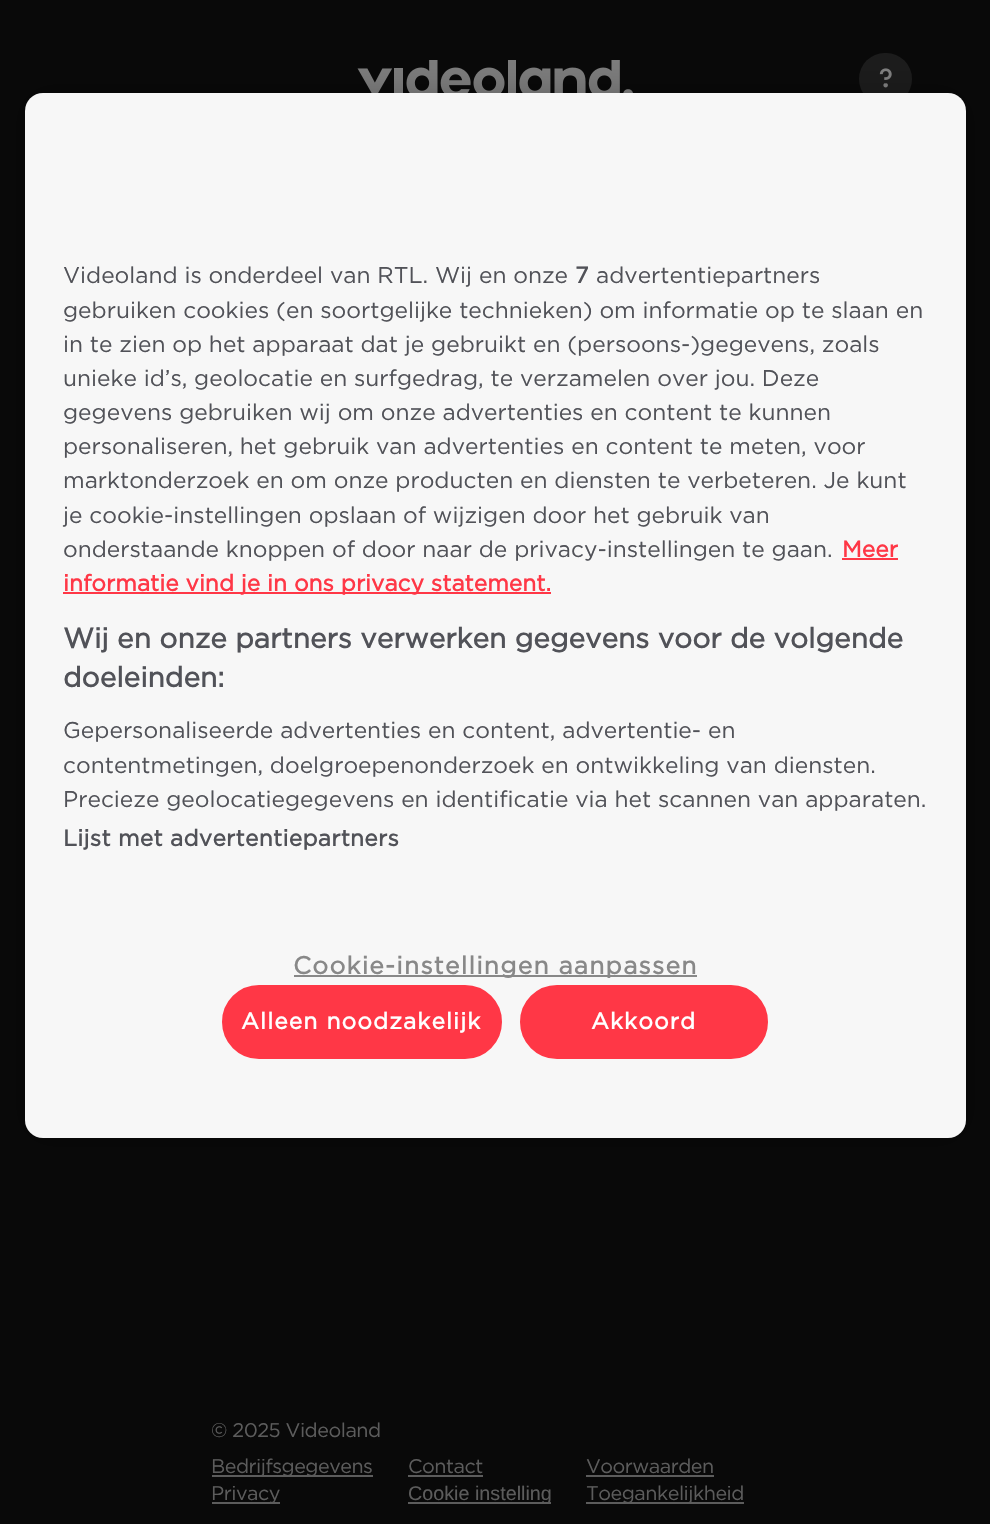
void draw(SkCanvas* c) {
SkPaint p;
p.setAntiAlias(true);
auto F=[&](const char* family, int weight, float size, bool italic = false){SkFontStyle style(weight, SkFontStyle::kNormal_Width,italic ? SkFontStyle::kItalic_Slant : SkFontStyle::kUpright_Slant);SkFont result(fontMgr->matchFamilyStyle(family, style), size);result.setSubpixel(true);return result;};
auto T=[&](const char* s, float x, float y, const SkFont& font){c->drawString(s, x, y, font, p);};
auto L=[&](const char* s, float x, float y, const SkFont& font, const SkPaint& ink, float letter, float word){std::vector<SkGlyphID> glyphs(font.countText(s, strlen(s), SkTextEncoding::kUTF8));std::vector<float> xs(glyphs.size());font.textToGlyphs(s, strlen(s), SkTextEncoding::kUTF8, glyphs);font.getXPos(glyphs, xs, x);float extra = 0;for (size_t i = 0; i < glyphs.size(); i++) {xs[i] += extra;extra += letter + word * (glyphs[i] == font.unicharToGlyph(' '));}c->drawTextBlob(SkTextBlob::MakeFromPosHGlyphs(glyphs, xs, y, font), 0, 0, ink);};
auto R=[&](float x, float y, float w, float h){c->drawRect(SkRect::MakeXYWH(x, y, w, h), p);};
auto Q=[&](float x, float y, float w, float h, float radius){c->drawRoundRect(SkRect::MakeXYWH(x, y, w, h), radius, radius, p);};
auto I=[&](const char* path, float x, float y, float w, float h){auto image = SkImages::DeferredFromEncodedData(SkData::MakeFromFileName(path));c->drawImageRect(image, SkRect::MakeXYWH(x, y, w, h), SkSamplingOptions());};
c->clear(0xff090909);
I("1.png",357,60,276,33);
p.setColor(0xff1c1c1c);
Q(859,53,53,52,26);
I("2.png",879,68,13,20);
p.setColor(0x33000000);
p.setMaskFilter(SkMaskFilter::MakeBlur(kNormal_SkBlurStyle, 16));
c->drawRoundRect(SkRect::MakeXYWH(25,93,941,1045),18,18,p);
p.setMaskFilter(nullptr);
p.setColor(0xfff7f7f7);
Q(25,93,941,1045,18);
auto f1 = F("Gotham",400,22.75);
p.setColor(0xff515258);
T("Videoland is onderdeel van RTL. Wij en onze",63,283,f1);
auto f2 = F("Gotham",700,22.75);
T("7",575,283,f2);
T("advertentiepartners",596,283,f1);
T("gebruiken cookies (en soortgelijke technieken) om informatie op te slaan en",63,318,f1);
T("in te zien op het apparaat dat je gebruikt en (persoons-)gegevens, zoals",63,352,f1);
T("unieke id’s, geolocatie en surfgedrag, te verzamelen over jou. Deze",63,386,f1);
T("gegevens gebruiken wij om onze advertenties en content te kunnen",63,420,f1);
T("personaliseren, het gebruik van advertenties en content te meten, voor",63,454,f1);
T("marktonderzoek en om onze producten en diensten te verbeteren. Je kunt",63,488,f1);
T("je cookie-instellingen opslaan of wijzigen door het gebruik van",63,523,f1);
T("onderstaande knoppen of door naar de privacy-instellingen te gaan.",63,557,f1);
p.setColor(0xffff3746);
T("Meer",842,557,f2);
R(842,558,56,2);
R(63,592,488,2);
T("informatie vind je in ons privacy statement.",63,591,f2);
auto f3 = F("Gotham",700,28);
p.setColor(0xff515258);
T("Wij en onze partners verwerken gegevens voor de volgende",63,648,f3);
T("doeleinden:",63,687,f3);
T("Gepersonaliseerde advertenties en content, advertentie- en",63,738,f1);
T("contentmetingen, doelgroepenonderzoek en ontwikkeling van diensten.",63,773,f1);
T("Precieze geolocatiegegevens en identificatie via het scannen van apparaten.",63,807,f1);
L("Lijst met advertentiepartners",63,846,f2,p,.25,0);
p.setColor(0xff888888);
R(294,975,403,2);
auto f4 = F("Gotham",700,24.5);
L("Cookie-instellingen aanpassen",293,974,f4,p,1.25,0);
p.setColor(0xffff3746);
c->drawRoundRect(SkRect::MakeXYWH(223,986,278,72),36,36,p);
p.setStroke(true);
p.setStrokeWidth(2);
c->drawRoundRect(SkRect::MakeXYWH(223,986,278,72),36,36,p);
p.setStroke(false);
p.setColor(0xffffffff);
L("Alleen noodzakelijk",241,1029,f2,p,1.1,0);
p.setColor(0xffff3746);
c->drawRoundRect(SkRect::MakeXYWH(521,986,246,72),36,36,p);
p.setStroke(true);
c->drawRoundRect(SkRect::MakeXYWH(521,986,246,72),36,36,p);
p.setStroke(false);
p.setColor(0xffffffff);
L("Akkoord",591,1029,f2,p,1.1,0);
auto f5 = F("Gotham",400,19.75);
p.setColor(0xff5c5c5c);
L("© 2025 Videoland",211,1437,f5,p,-.5,0);
R(212,1475,161,2);
L("Bedrijfsgegevens",211,1473,f5,p,-.5,0);
L("Contact",408,1473,f5,p,-.5,0);
R(408,1475,75,2);
L("Voorwaarden",586,1473,f5,p,-.5,0);
R(586,1475,128,2);
R(212,1502,68,2);
L("Privacy",211,1500,f5,p,-.5,0);
R(408,1502,143,2);
auto f6 = F("Liberation Sans",400,19.75);
T("Cookie instelling",408,1500,f6);
R(586,1502,158,2);
L("Toegankelijkheid",586,1500,f5,p,-.5,0);
}
